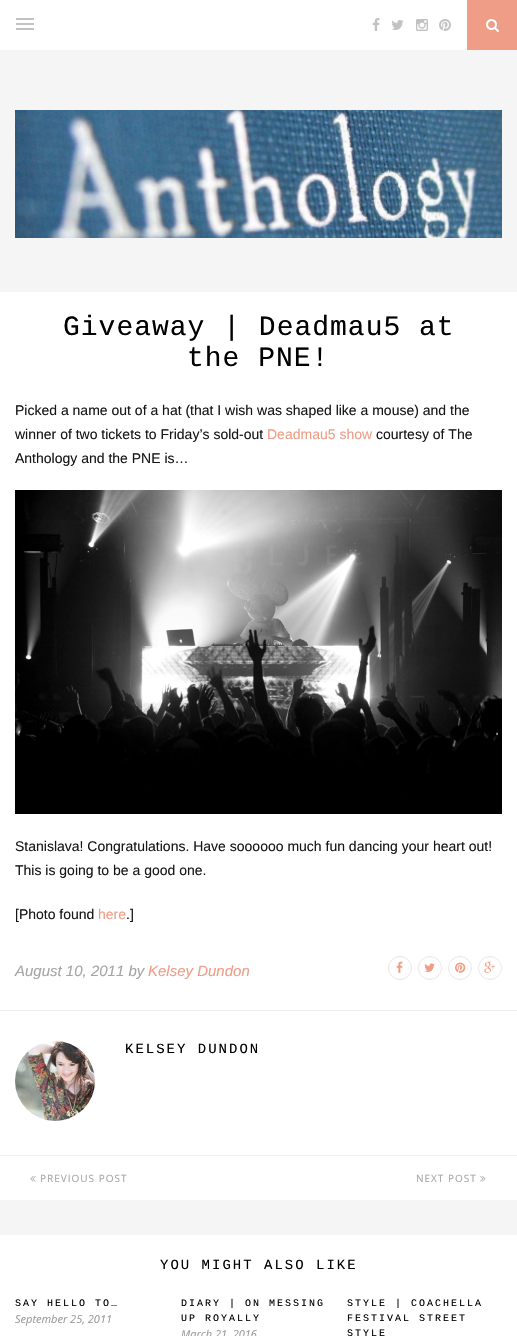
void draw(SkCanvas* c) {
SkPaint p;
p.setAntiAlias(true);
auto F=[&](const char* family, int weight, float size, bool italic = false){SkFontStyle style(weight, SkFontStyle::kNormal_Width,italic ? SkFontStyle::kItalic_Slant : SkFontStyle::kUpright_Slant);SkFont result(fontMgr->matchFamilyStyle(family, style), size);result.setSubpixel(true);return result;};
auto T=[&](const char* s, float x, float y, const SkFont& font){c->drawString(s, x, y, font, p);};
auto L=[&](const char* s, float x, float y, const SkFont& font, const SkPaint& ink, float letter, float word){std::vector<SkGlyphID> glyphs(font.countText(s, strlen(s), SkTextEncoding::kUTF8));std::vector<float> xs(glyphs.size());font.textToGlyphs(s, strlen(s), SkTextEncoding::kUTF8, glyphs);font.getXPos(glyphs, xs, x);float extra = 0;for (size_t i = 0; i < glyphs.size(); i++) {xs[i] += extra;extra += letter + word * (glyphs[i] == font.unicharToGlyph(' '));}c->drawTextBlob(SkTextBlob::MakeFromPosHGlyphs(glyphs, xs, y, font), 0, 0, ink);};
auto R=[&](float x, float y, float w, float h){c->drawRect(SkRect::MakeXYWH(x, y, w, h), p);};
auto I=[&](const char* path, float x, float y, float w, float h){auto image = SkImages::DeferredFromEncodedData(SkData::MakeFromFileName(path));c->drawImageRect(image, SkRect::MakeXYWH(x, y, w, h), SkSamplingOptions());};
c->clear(0xfff5f5f5);
p.setColor(0xffffffff);
R(0,0,467,50);
p.setColor(0xffc2c2c2);
R(16,18,18,2);
R(16,23,18,2);
R(16,28,18,2);
I("1.png",372,18,8,13);
I("2.png",391,20,13,10);
I("3.png",416,19,12,12);
I("4.png",439,19,12,12);
p.setColor(0xffef9d87);
R(467,0,50,50);
I("5.png",486,19,13,13);
I("6.png",15,110,487,128);
p.setColor(0xffffffff);
R(0,292,517,908);
auto f1 = F("Liberation Mono",400,28);
p.setColor(0xff000000);
L("Giveaway | Deadmau5 at",63,335,f1,p,1,0);
L("the PNE!",187,366,f1,p,1,0);
auto f2 = F("Liberation Sans",400,14);
p.setColor(0xff161616);
T("Picked a name out of a hat (that I wish was shaped like a mouse) and the",15,415,f2);
T("winner of two tickets to Friday’s sold-out",15,439,f2);
p.setColor(0xffef9d87);
T("Deadmau5 show",267,439,f2);
p.setColor(0xff161616);
T("courtesy of The",376,439,f2);
T("Anthology and the PNE is…",15,463,f2);
I("7.png",15,490,487,324);
T("Stanislava! Congratulations. Have soooooo much fun dancing your heart out!",15,851,f2);
T("This is going to be a good one.",15,875,f2);
T("[Photo found",15,919,f2);
p.setColor(0xffef9d87);
T("here",98,919,f2);
p.setColor(0xff161616);
T(".]",126,919,f2);
auto f3 = F("Liberation Sans",400,15,true);
p.setColor(0xffa5a5a5);
T("August 10, 2011 by",15,976,f3);
p.setColor(0xffef9d87);
T("Kelsey Dundon",148,976,f3);
p.setStroke(true);
p.setStrokeWidth(1);
p.setColor(0xffe8e8e8);
c->drawCircle(400,968,11.5,p);
I("8.png",396,961,7,12);
c->drawCircle(430,968,11.5,p);
I("9.png",424,963,11,9);
c->drawCircle(460,968,11.5,p);
I("10.png",455,962,11,11);
c->drawCircle(490,968,11.5,p);
I("11.png",484,961,11,12);
p.setStroke(false);
p.setColor(0xffeeeeee);
R(0,1010,517,1);
I("12.png",15,1041,80,80);
auto f4 = F("Liberation Mono",400,14);
p.setColor(0xff000000);
L("KELSEY DUNDON",125,1053,f4,p,2,0);
p.setColor(0xffeeeeee);
R(0,1155,517,1);
I("13.png",30,1176,6,6);
auto f5 = F("Open Sans",400,10);
p.setColor(0xffa5a5a5);
L("PREVIOUS POST",40,1182,f5,p,1,0);
L("NEXT POST",416,1182,f5,p,1,0);
I("14.png",480,1176,6,6);
p.setColor(0xffffffff);
R(0,1235,517,101);
p.setColor(0xff000000);
L("YOU MIGHT ALSO LIKE",160,1269,f4,p,2,0);
auto f6 = F("Liberation Mono",400,10);
L("SAY HELLO TO…",15,1306,f6,p,2,0);
auto f7 = F("Open Sans",400,11,true);
p.setColor(0xff999999);
T("September 25, 2011",15,1323,f7);
p.setColor(0xff000000);
L("DIARY | ON MESSING",181,1306,f6,p,2,0);
L("UP ROYALLY",181,1321,f6,p,2,0);
p.setColor(0xff999999);
T("March 21, 2016",181,1338,f7);
p.setColor(0xff000000);
L("STYLE | COACHELLA",347,1306,f6,p,2,0);
L("FESTIVAL STREET",347,1321,f6,p,2,0);
L("STYLE",347,1336,f6,p,2,0);
}
